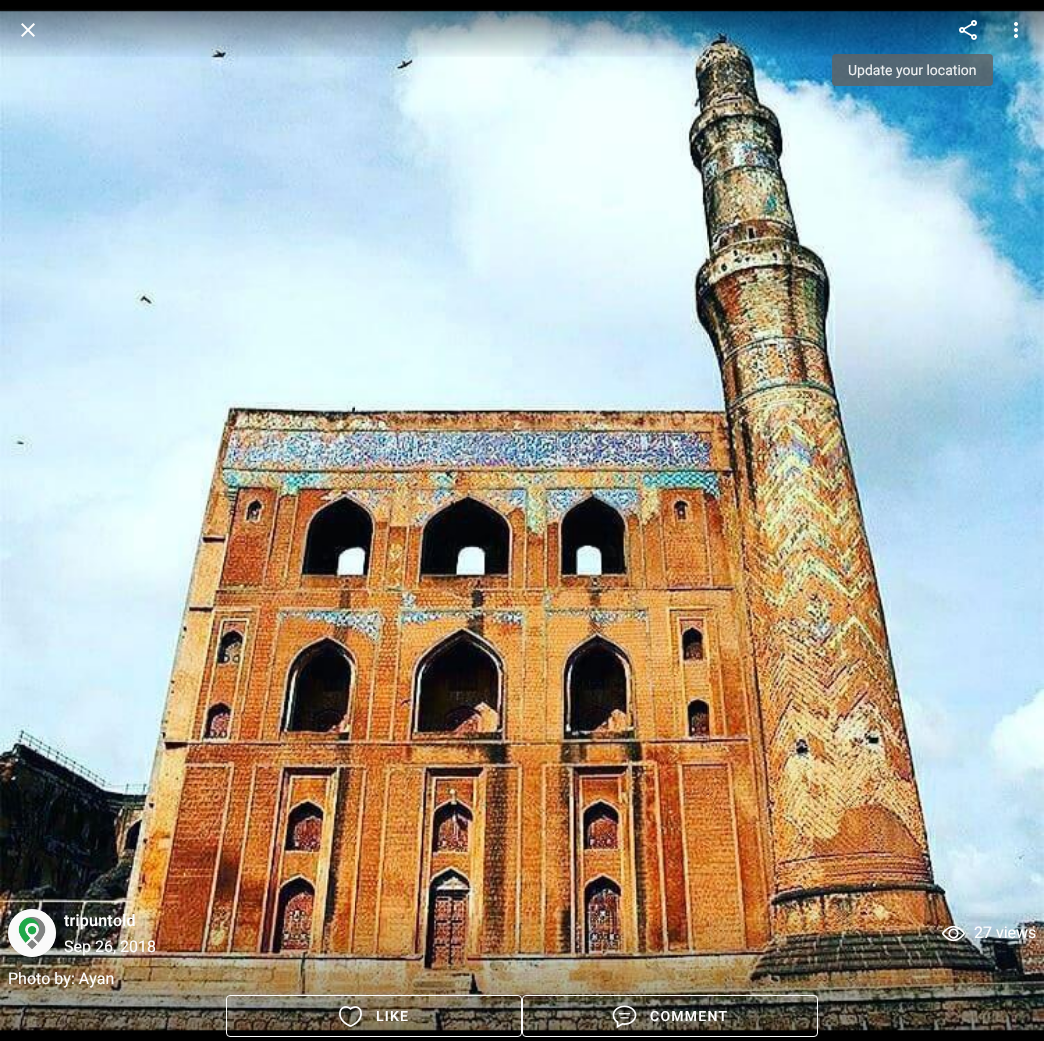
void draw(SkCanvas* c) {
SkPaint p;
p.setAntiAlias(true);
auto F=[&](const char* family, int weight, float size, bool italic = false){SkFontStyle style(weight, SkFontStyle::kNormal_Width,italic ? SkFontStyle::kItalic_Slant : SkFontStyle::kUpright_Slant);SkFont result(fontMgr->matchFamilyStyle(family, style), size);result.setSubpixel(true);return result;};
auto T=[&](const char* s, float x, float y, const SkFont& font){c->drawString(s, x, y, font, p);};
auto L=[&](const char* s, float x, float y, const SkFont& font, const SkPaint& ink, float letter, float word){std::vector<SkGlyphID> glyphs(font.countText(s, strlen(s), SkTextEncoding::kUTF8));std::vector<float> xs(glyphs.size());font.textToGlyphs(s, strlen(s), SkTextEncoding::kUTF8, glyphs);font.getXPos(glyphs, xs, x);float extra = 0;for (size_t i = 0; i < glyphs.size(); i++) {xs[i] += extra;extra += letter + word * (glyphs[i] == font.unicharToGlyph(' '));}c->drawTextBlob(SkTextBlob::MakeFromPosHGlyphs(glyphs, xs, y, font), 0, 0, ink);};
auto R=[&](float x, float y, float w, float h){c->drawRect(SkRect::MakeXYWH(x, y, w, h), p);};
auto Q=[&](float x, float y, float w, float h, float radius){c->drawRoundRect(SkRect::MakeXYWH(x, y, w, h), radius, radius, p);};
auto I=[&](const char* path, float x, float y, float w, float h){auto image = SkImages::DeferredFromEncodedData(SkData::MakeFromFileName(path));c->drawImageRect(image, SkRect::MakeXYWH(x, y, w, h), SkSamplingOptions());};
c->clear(0xff000000);
I("4.png",0,9,1044,1022);
{
const SkColor colors[] = {0x80000000,0x00000000};
const float stops[] = {0,1};
const SkPoint ends[] = {{522,0}, {522,60}};
p.setShader(SkGradientShader::MakeLinear(ends, colors, stops, 2, SkTileMode::kClamp));
p.setAlpha(255);
}
R(0,9,1044,48);
p.setShader(nullptr);
p.setColor(0xcf616161);
Q(832,54,161,32,4);
auto f1 = F("Roboto",400,14);
p.setColor(0xffeef0f1);
T("Update your location",848,75,f1);
I("1.png",21,23,14,14);
I("2.png",959,20,18,20);
I("3.png",1014,22,4,16);
{
const SkColor colors[] = {0x00000000,0x80000000};
const float stops[] = {0,1};
const SkPoint ends[] = {{522,907}, {522,1041}};
p.setShader(SkGradientShader::MakeLinear(ends, colors, stops, 2, SkTileMode::kClamp));
p.setAlpha(255);
}
R(0,913,1044,118);
p.setShader(nullptr);
p.setColor(0xffe3e3e3);
c->drawCircle(32,933,24,p);
I("5.png",8,909,48,48);
auto f2 = F("Roboto",500,16);
p.setColor(0xffffffff);
L("tripuntold",64,926,f2,p,.25,0);
auto f3 = F("Roboto",400,16);
T("Sep 26, 2018",64,952,f3);
I("6.png",942,925,23,17);
T("27 views",974,938,f3);
T("Photo by: Ayan",8,984,f3);
p.setStroke(true);
p.setStrokeWidth(1);
c->drawRoundRect(SkRect::MakeXYWH(226.5,995.5,295,41),3.5,3.5,p);
I("7.png",339,1006,23,21);
auto f4 = F("Roboto",500,14);
p.setStroke(false);
L("LIKE",376,1021,f4,p,1.25,0);
p.setStroke(true);
c->drawRoundRect(SkRect::MakeXYWH(522.5,995.5,295,41),3.5,3.5,p);
I("8.png",612,1005,25,23);
p.setStroke(false);
L("COMMENT",650,1021,f4,p,1.25,0);
}
